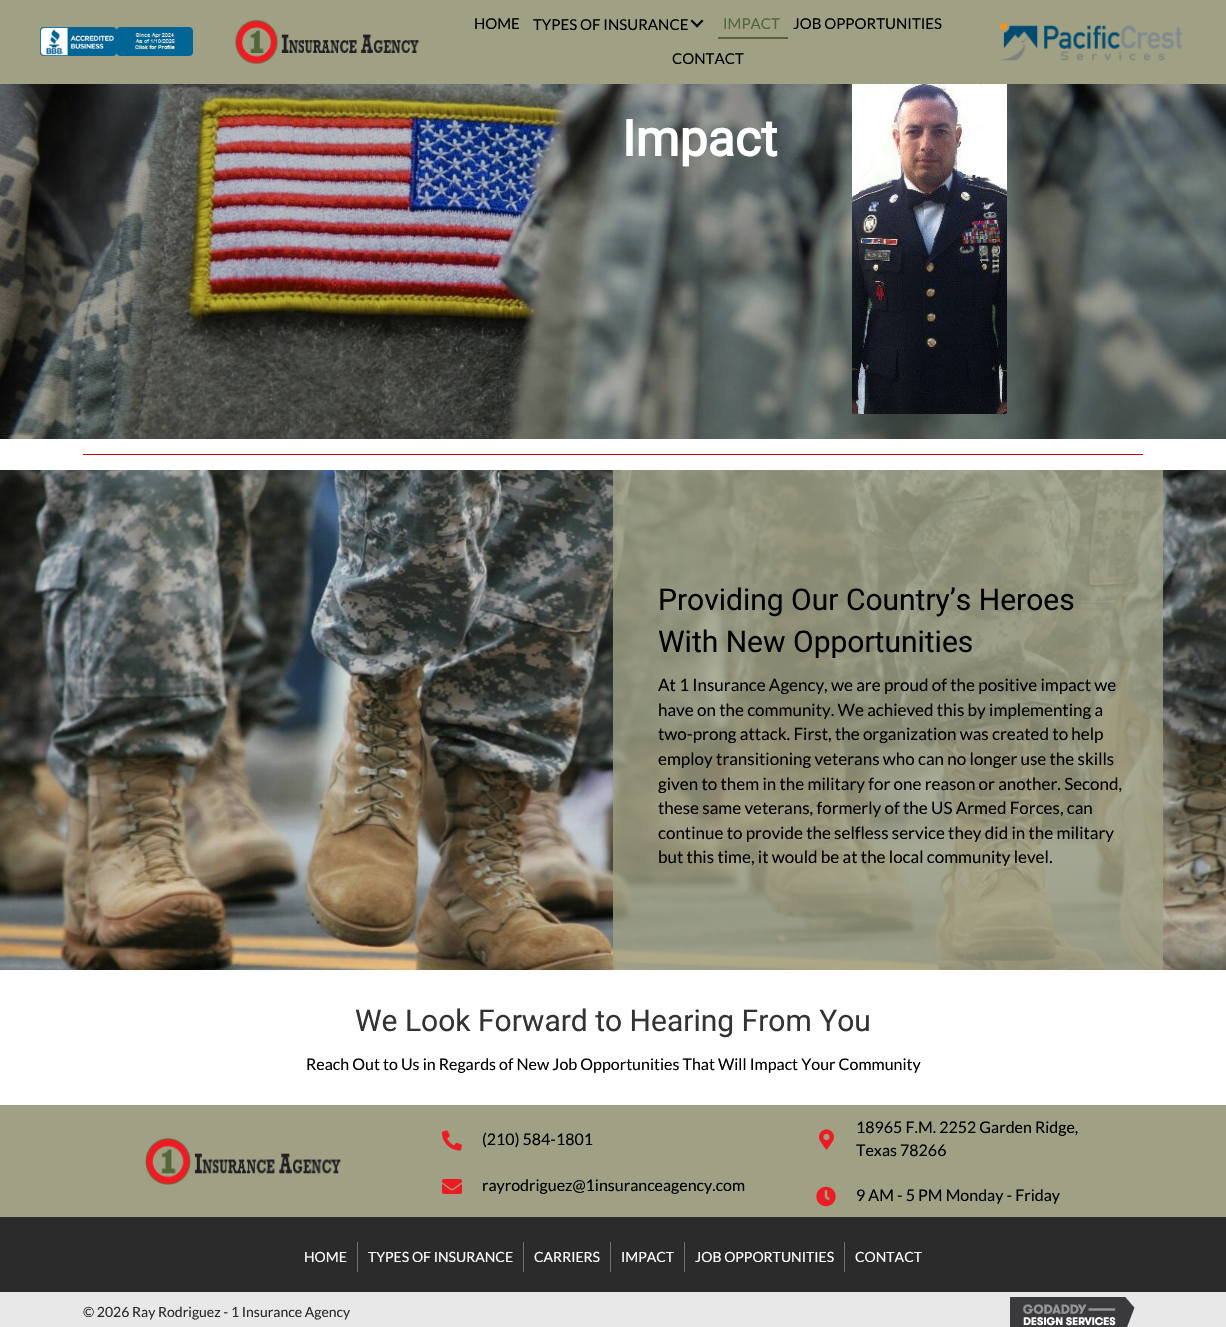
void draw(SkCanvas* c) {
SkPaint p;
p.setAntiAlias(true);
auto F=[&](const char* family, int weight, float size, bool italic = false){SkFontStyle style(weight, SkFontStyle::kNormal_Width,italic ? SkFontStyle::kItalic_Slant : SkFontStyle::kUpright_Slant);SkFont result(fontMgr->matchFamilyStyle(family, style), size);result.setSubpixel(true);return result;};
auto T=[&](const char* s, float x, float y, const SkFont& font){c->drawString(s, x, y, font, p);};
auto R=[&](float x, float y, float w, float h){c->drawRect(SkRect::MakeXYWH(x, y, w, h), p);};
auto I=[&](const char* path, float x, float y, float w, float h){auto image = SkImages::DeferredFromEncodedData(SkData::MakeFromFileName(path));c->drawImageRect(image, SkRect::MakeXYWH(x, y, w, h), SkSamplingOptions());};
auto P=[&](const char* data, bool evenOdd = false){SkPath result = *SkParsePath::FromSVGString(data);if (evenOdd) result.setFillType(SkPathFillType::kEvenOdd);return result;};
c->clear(0xffffffff);
p.setColor(0xff9fa084);
R(0,0,1226,84);
I("1.png",40,27,153,29);
I("2.png",235,19,185,45);
auto f1 = F("Lato",400,15);
p.setColor(0xff000000);
T("HOME",474,29,f1);
T("TYPES OF INSURANCE",533,30,f1);
c->drawPath(P("M702 19.5l1.5 1.5l-6.5 6.5l-1.5-1.5z"),p);
c->drawPath(P("M692 19.5l6.5 6.5l-1.5 1.5l-6.5-6.5z"),p);
p.setColor(0xff546539);
R(718,37,70,2);
T("IMPACT",723,29,f1);
p.setColor(0xff000000);
T("JOB OPPORTUNITIES",793,29,f1);
T("CONTACT",672,64,f1);
I("3.png",1000,22,182,39);
I("4.png",0,84,1226,355);
auto f2 = F("Roboto",700,50);
p.setColor(0xffffffff);
T("Impact",622,156,f2);
I("5.png",852,84,155,330);
p.setColor(0xffcc0404);
R(83,454,1060,1);
I("6.png",0,470,1226,500);
p.setColor(0xcc9fa084);
R(613,470,550,500);
auto f3 = F("Roboto",400,30);
p.setColor(0xff000000);
T("Providing Our Country’s Heroes",658,610,f3);
T("With New Opportunities",658,652,f3);
auto f4 = F("Lato",400,17);
T("At 1 Insurance Agency, we are proud of the positive impact we",658,691,f4);
T("have on the community. We achieved this by implementing a",658,716,f4);
T("two-prong attack. First, the organization was created to help",658,740,f4);
T("employ transitioning veterans who can no longer use the skills",658,765,f4);
T("given to them in the military for one reason or another. Second,",658,790,f4);
T("these same veterans, formerly of the US Armed Forces, can",658,814,f4);
T("continue to provide the selfless service they did in the military",658,839,f4);
T("but this time, it would be at the local community level.",658,863,f4);
p.setColor(0xff333333);
T("We Look Forward to Hearing From You",355,1031,f3);
auto f5 = F("Lato",400,16);
p.setColor(0xff000000);
T("Reach Out to Us in Regards of New Job Opportunities That Will Impact Your Community",306,1070,f5);
p.setColor(0xff9fa084);
R(0,1105,1226,112);
I("7.png",145,1138,196,47);
I("8.png",442,1130,20,21);
p.setColor(0xff000000);
T("(210) 584-1801",482,1145,f5);
I("9.png",442,1179,20,15);
T("rayrodriguez@1insuranceagency.com",482,1191,f5);
I("10.png",819,1129,15,21);
T("18965 F.M. 2252 Garden Ridge,",856,1133,f5);
T("Texas 78266",856,1156,f5);
I("11.png",816,1186,20,21);
T("9 AM - 5 PM Monday - Friday",856,1201,f5);
p.setColor(0xff2b2b2b);
R(0,1217,1226,75);
auto f6 = F("Lato",400,14);
p.setColor(0xffffffff);
T("HOME",304,1262,f6);
p.setColor(0xff717171);
R(357,1242,1,30);
p.setColor(0xffffffff);
T("TYPES OF INSURANCE",368,1262,f6);
p.setColor(0xff717171);
R(523,1242,1,30);
p.setColor(0xffffffff);
T("CARRIERS",534,1262,f6);
p.setColor(0xff717171);
R(610,1242,1,30);
p.setColor(0xffffffff);
T("IMPACT",621,1262,f6);
p.setColor(0xff717171);
R(684,1242,1,30);
p.setColor(0xffffffff);
T("JOB OPPORTUNITIES",695,1262,f6);
p.setColor(0xff717171);
R(844,1242,1,30);
p.setColor(0xffffffff);
T("CONTACT",855,1262,f6);
p.setColor(0xffe8e8e8);
R(0,1292,1226,35);
p.setColor(0xff2b2b2b);
T("© 2026 Ray Rodriguez - 1 Insurance Agency",83,1317,f6);
I("12.png",1010,1297,125,30);
}
